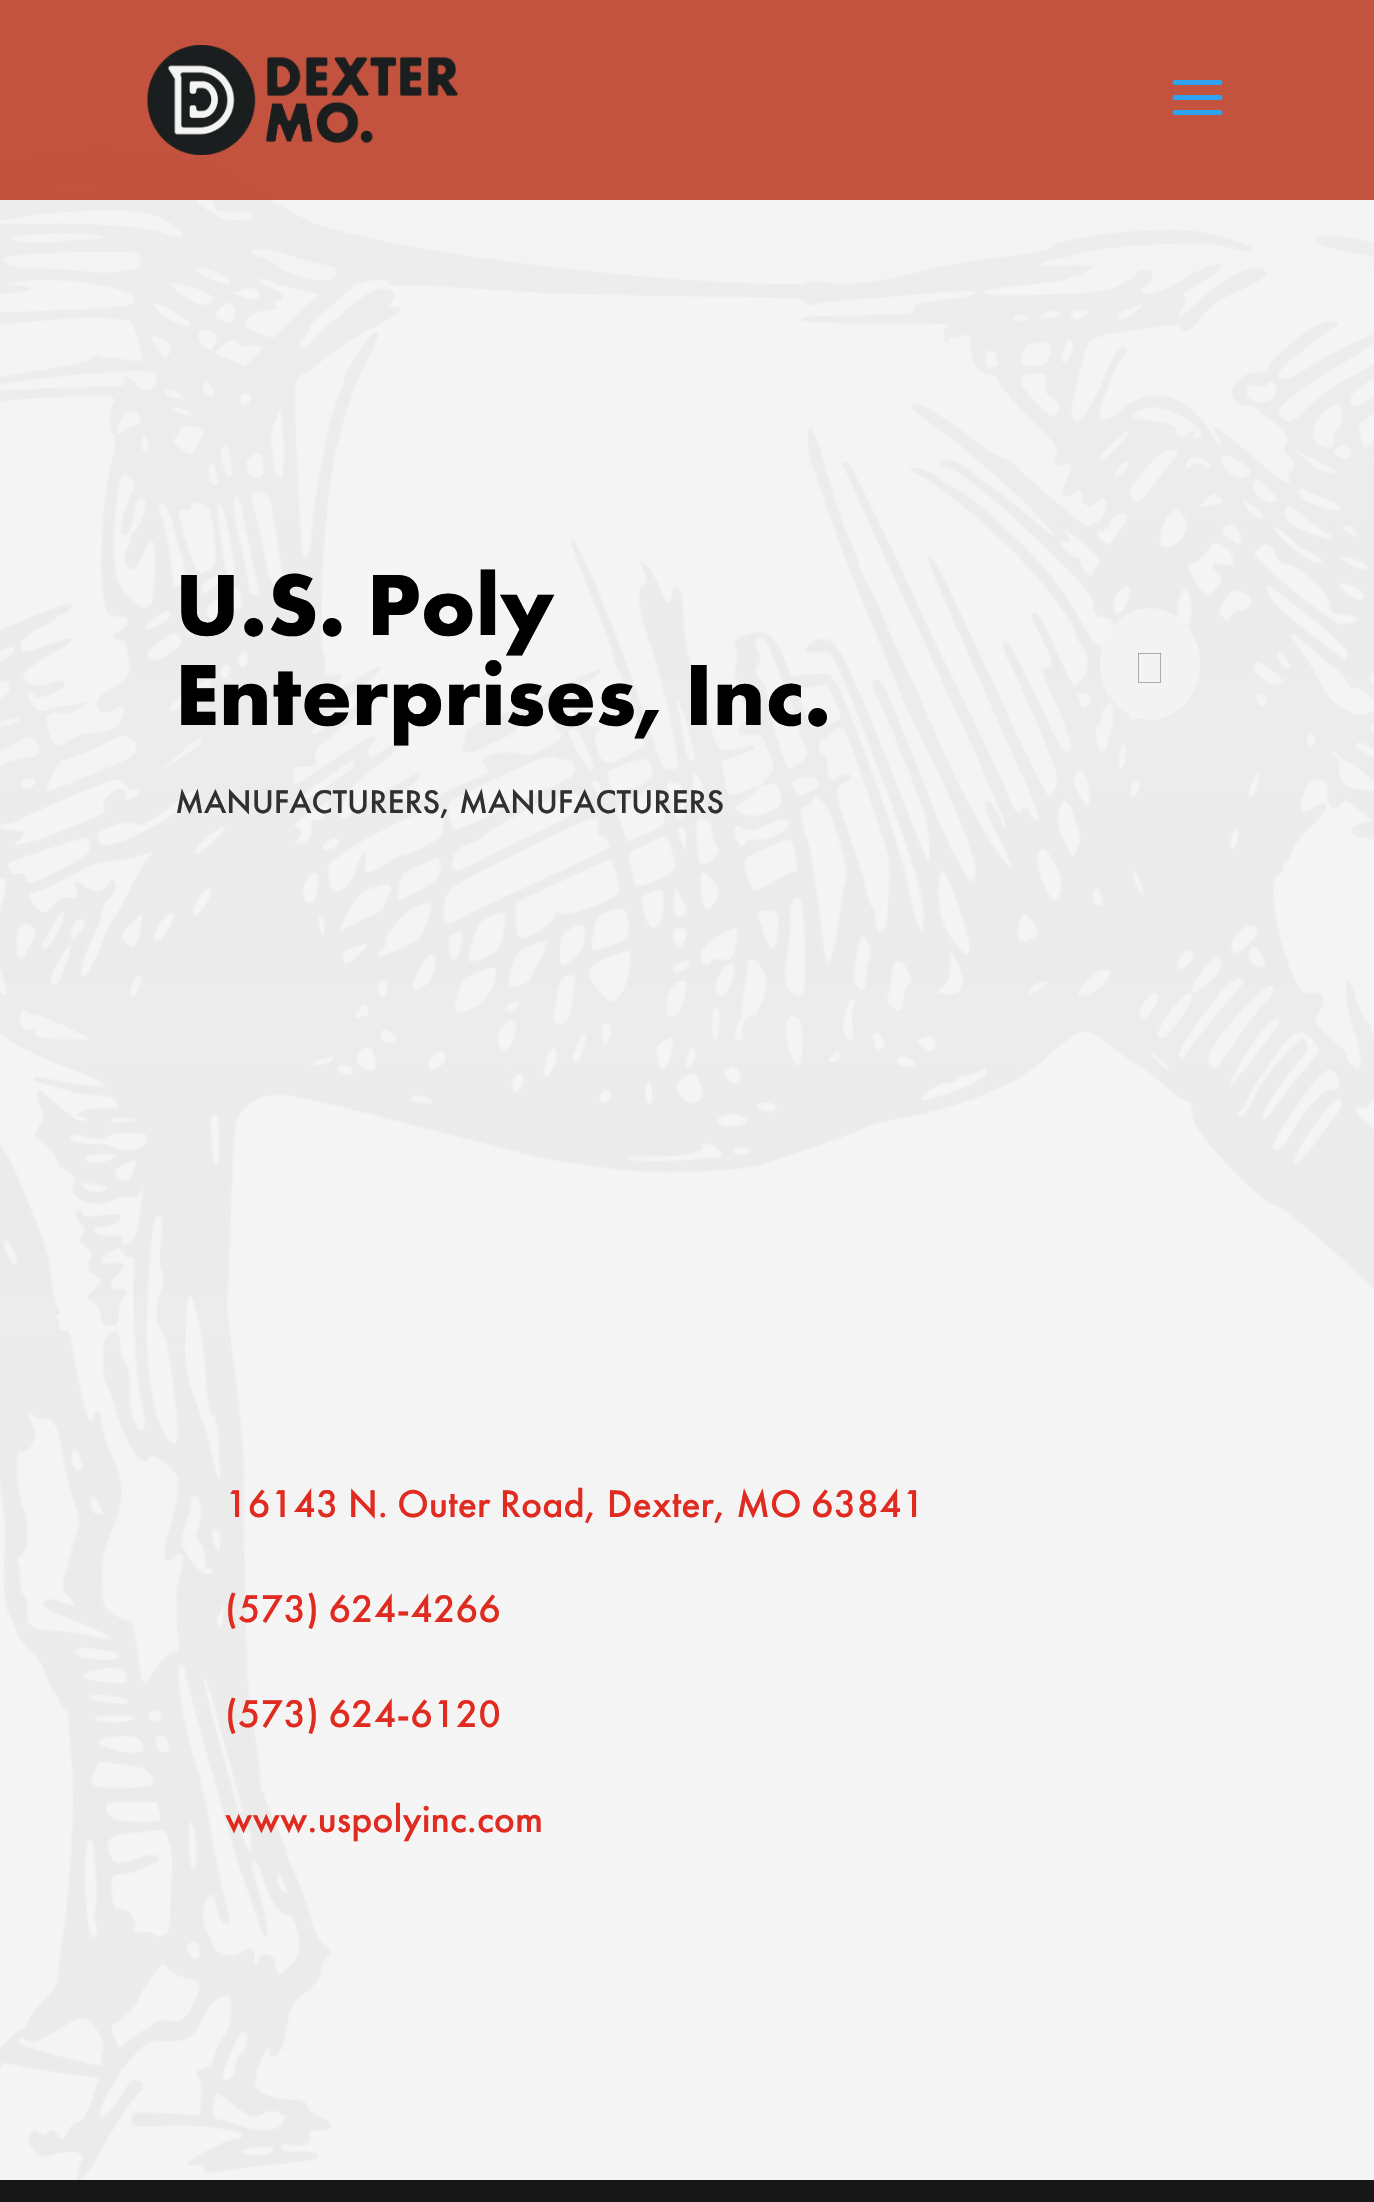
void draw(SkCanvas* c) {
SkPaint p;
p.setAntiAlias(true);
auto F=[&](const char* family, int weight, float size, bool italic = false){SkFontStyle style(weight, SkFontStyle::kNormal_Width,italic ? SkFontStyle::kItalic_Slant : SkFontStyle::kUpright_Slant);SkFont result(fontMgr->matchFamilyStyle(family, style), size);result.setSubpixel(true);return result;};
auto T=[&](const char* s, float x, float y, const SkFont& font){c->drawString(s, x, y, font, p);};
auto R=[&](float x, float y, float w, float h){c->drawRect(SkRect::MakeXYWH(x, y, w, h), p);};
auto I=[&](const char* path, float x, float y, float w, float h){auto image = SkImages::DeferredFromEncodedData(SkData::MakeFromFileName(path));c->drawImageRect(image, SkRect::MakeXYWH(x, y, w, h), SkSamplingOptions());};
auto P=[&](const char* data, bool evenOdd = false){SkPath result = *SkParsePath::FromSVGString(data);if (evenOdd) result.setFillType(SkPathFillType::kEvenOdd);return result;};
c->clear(0xffffffff);
p.setColor(0xfff4f4f4);
R(0,150,1374,2030);
I("3.png",0,150,1374,2030);
p.setColor(0xedbe462f);
R(0,0,1374,200);
I("1.png",147,45,311,110);
I("2.png",1172,80,51,35);
auto f1 = F("Futura PT",700,90);
p.setColor(0xff000000);
T("U.S. Poly",175,635,f1);
T("Enterprises, Inc.",175,725,f1);
p.setColor(0xfff3f3f3);
c->drawOval(SkRect::MakeXYWH(1100,608,100,112),p);
p.setColor(0xff666666);
c->drawPath(P("M1160.5 682v-28.5h-22v28.5zm-22.5-29h23v29.5h-23z"),p);
auto f2 = F("Futura PT",500,34);
p.setColor(0xff303030);
T("MANUFACTURERS, MANUFACTURERS",175,813,f2);
auto f3 = F("Futura PT",500,40);
p.setColor(0xffe02b20);
T("16143 N. Outer Road, Dexter, MO 63841",225,1517,f3);
T("(573) 624-4266",225,1622,f3);
T("(573) 624-6120",225,1727,f3);
T("www.uspolyinc.com",225,1832,f3);
p.setColor(0xff171717);
R(0,2180,1374,22);
}
